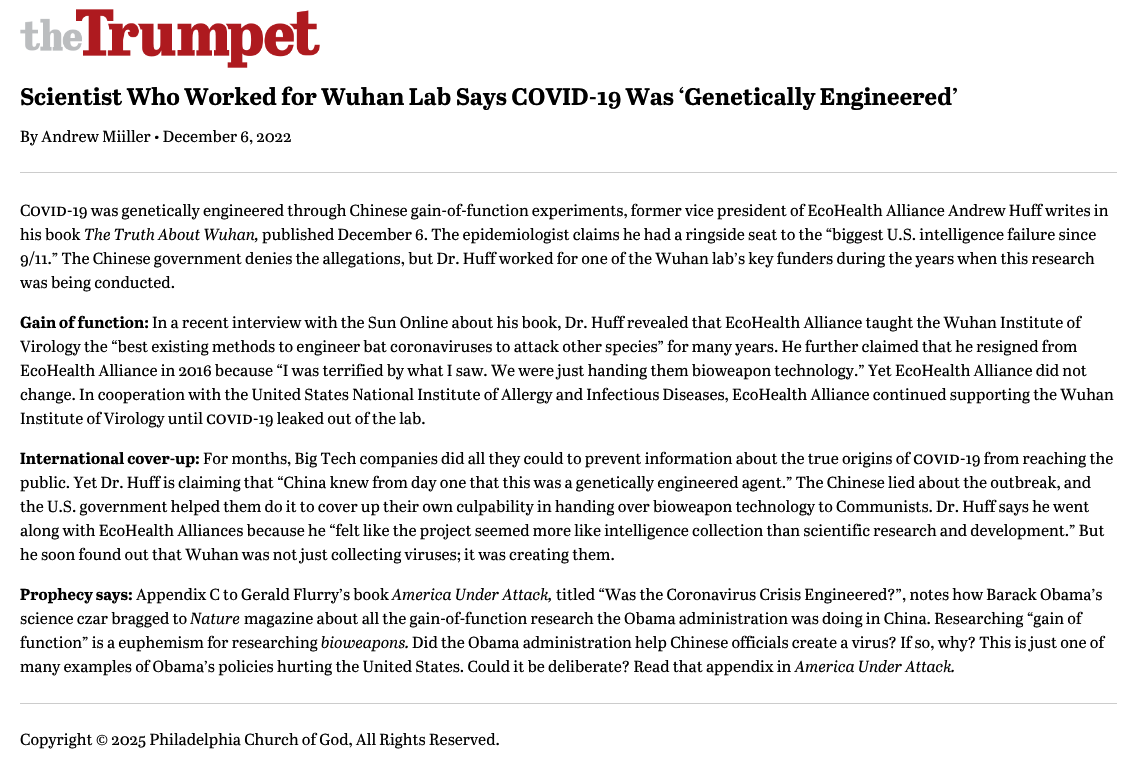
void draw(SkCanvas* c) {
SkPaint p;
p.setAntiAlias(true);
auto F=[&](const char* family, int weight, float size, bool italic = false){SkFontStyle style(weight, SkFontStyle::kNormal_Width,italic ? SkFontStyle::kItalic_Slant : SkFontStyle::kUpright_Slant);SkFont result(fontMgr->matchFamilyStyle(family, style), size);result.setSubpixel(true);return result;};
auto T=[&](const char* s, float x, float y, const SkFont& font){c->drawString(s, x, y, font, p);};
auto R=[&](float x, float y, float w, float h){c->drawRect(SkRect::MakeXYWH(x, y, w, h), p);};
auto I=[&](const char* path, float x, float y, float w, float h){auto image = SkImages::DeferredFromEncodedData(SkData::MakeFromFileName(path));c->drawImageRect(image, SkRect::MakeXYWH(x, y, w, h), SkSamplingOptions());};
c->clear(0xffffffff);
I("1.png",20,9,300,59);
auto f1 = F("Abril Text",700,24);
p.setColor(0xff000000);
T("Scientist Who Worked for Wuhan Lab Says COVID-19 Was ‘Genetically Engineered’",20,105,f1);
auto f2 = F("Abril Text",400,16);
T("By Andrew Miiller • December 6, 2022",20,142,f2);
p.setColor(0xffcccccc);
R(20,172,1097,1);
p.setColor(0xff000000);
T("C",20,216,f2);
auto f3 = F("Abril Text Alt",400,17.5);
T("ovid",30,216,f3);
T("-19 was genetically engineered through Chinese gain-of-function experiments, former vice president of EcoHealth Alliance Andrew Huff writes in",67,216,f2);
T("his book",20,240,f2);
auto f4 = F("Abril Text",400,16,true);
T("The Truth About Wuhan,",84,240,f4);
T("published December 6. The epidemiologist claims he had a ringside seat to the “biggest U.S. intelligence failure since",262,240,f2);
T("9/11.” The Chinese government denies the allegations, but Dr. Huff worked for one of the Wuhan lab’s key funders during the years when this research",20,264,f2);
T("was being conducted.",20,288,f2);
auto f5 = F("Abril Text",700,16);
T("Gain of function:",20,328,f5);
T("In a recent interview with the Sun Online about his book, Dr. Huff revealed that EcoHealth Alliance taught the Wuhan Institute of",152,328,f2);
T("Virology the “best existing methods to engineer bat coronaviruses to attack other species” for many years. He further claimed that he resigned from",20,352,f2);
T("EcoHealth Alliance in 2016 because “I was terrified by what I saw. We were just handing them bioweapon technology.” Yet EcoHealth Alliance did not",20,376,f2);
T("change. In cooperation with the United States National Institute of Allergy and Infectious Diseases, EcoHealth Alliance continued supporting the Wuhan",20,400,f2);
T("Institute of Virology until",20,424,f2);
T("covid",206,424,f3);
T("-19 leaked out of the lab.",253,424,f2);
T("International cover-up:",20,464,f5);
T("For months, Big Tech companies did all they could to prevent information about the true origins of",203,464,f2);
T("covid",913,464,f3);
T("-19 from reaching the",960,464,f2);
T("public. Yet Dr. Huff is claiming that “China knew from day one that this was a genetically engineered agent.” The Chinese lied about the outbreak, and",20,488,f2);
T("the U.S. government helped them do it to cover up their own culpability in handing over bioweapon technology to Communists. Dr. Huff says he went",20,512,f2);
T("along with EcoHealth Alliances because he “felt like the project seemed more like intelligence collection than scientific research and development.” But",20,536,f2);
T("he soon found out that Wuhan was not just collecting viruses; it was creating them.",20,560,f2);
T("Prophecy says:",20,600,f5);
T("Appendix C to Gerald Flurry’s book",136,600,f2);
T("America Under Attack,",392,600,f4);
T("titled “Was the Coronavirus Crisis Engineered?”, notes how Barack Obama’s",556,600,f2);
T("science czar bragged to",20,624,f2);
T("Nature",190,624,f4);
T("magazine about all the gain-of-function research the Obama administration was doing in China. Researching “gain of",244,624,f2);
T("function” is a euphemism for researching",20,648,f2);
T("bioweapons.",321,648,f4);
T("Did the Obama administration help Chinese officials create a virus? If so, why? This is just one of",412,648,f2);
T("many examples of Obama’s policies hurting the United States. Could it be deliberate? Read that appendix in",20,672,f2);
T("America Under Attack.",795,672,f4);
p.setColor(0xffcccccc);
R(20,703,1097,1);
p.setColor(0xff000000);
T("Copyright © 2025 Philadelphia Church of God, All Rights Reserved.",20,745,f2);
}
